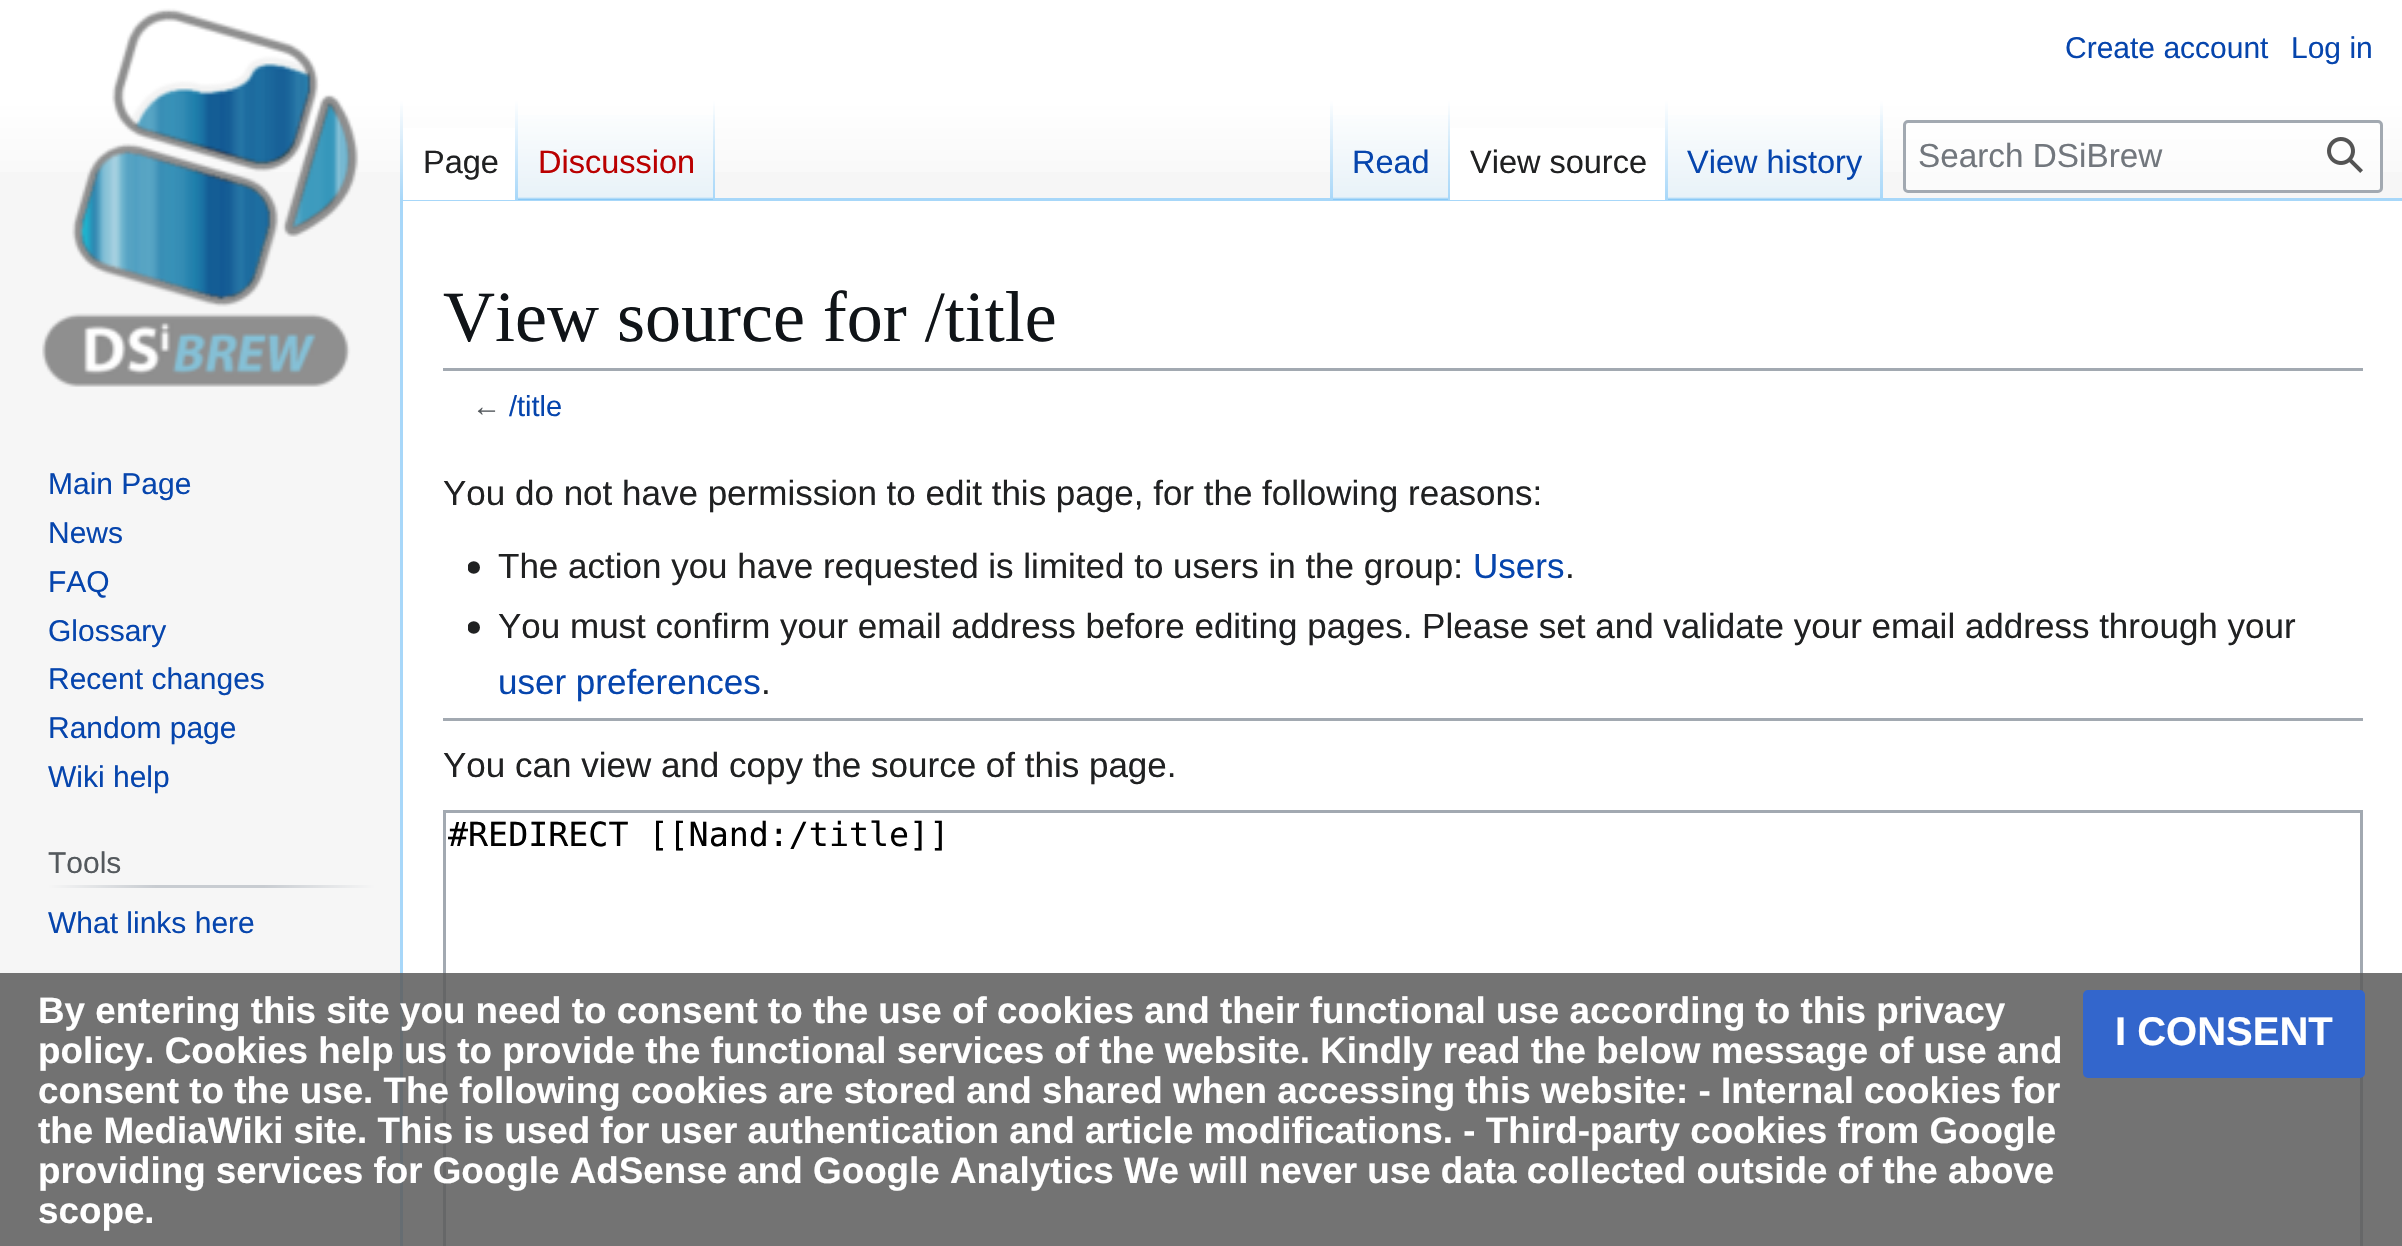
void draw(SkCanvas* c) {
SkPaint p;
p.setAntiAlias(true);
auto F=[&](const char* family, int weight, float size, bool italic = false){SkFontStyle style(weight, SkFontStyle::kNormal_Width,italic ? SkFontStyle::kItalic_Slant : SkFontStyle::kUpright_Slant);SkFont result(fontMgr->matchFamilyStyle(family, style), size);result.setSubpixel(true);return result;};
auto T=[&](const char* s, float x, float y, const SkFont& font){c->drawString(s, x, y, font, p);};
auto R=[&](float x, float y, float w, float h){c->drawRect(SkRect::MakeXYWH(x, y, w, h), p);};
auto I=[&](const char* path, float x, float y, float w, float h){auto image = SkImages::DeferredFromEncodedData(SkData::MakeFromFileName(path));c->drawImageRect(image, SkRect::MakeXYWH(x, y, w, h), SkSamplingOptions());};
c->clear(0xfff6f6f6);
{
const SkColor colors[] = {0xffffffff,0xfff6f6f6};
const float stops[] = {.5,1};
const SkPoint ends[] = {{1201,0}, {1201,200}};
p.setShader(SkGradientShader::MakeLinear(ends, colors, stops, 2, SkTileMode::kClamp));
p.setAlpha(255);
}
R(0,0,2402,172);
auto f1 = F("Liberation Sans",400,30);
p.setShader(nullptr);
p.setColor(0xff0645ad);
T("Create account",2065,58,f1);
T("Log in",2291,58,f1);
p.setColor(0xffa7d7f9);
R(400,198,2002,3);
R(400,198,3,1048);
{
const SkColor colors[] = {0x00a7d7f9,0xffa7d7f9};
const float stops[] = {0,1};
const SkPoint ends[] = {{401,100}, {401,200}};
p.setShader(SkGradientShader::MakeLinear(ends, colors, stops, 2, SkTileMode::kClamp));
p.setAlpha(255);
}
R(400,100,3,100);
p.setShader(nullptr);
p.setColor(0xffffffff);
R(403,128,112,72);
{
const SkColor colors[] = {0xffffffff,0xffa7d7f9};
const float stops[] = {0,1};
const SkPoint ends[] = {{516,100}, {516,200}};
p.setShader(SkGradientShader::MakeLinear(ends, colors, stops, 2, SkTileMode::kClamp));
p.setAlpha(255);
}
R(515,100,3,100);
auto f2 = F("Liberation Sans",400,32.5);
p.setShader(nullptr);
p.setColor(0xff202122);
T("Page",423,173,f2);
{
const SkColor colors[] = {0xff77c1f6,0xffe8f2f8,0xffffffff};
const float stops[] = {0,.03,1};
const SkPoint ends[] = {{616,200}, {616,100}};
p.setShader(SkGradientShader::MakeLinear(ends, colors, stops, 3, SkTileMode::kClamp));
p.setAlpha(255);
}
R(518,115,197,85);
{
const SkColor colors[] = {0x00a7d7f9,0xffa7d7f9};
const float stops[] = {0,1};
const SkPoint ends[] = {{714,100}, {714,200}};
p.setShader(SkGradientShader::MakeLinear(ends, colors, stops, 2, SkTileMode::kClamp));
p.setAlpha(255);
}
R(713,100,2,100);
p.setShader(nullptr);
p.setColor(0xffba0000);
T("Discussion",538,173,f2);
{
const SkColor colors[] = {0x00a7d7f9,0xffa7d7f9};
const float stops[] = {0,1};
const SkPoint ends[] = {{1331,100}, {1331,200}};
p.setShader(SkGradientShader::MakeLinear(ends, colors, stops, 2, SkTileMode::kClamp));
p.setAlpha(255);
}
R(1330,100,3,100);
{
const SkColor colors[] = {0xff77c1f6,0xffe8f2f8,0xffffffff};
const float stops[] = {0,.03,1};
const SkPoint ends[] = {{1391,200}, {1391,100}};
p.setShader(SkGradientShader::MakeLinear(ends, colors, stops, 3, SkTileMode::kClamp));
p.setAlpha(255);
}
R(1333,115,117,85);
{
const SkColor colors[] = {0x00a7d7f9,0xffa7d7f9};
const float stops[] = {0,1};
const SkPoint ends[] = {{1449,100}, {1449,200}};
p.setShader(SkGradientShader::MakeLinear(ends, colors, stops, 2, SkTileMode::kClamp));
p.setAlpha(255);
}
R(1448,100,2,100);
p.setShader(nullptr);
p.setColor(0xff0645ad);
T("Read",1352,173,f2);
p.setColor(0xffffffff);
R(1450,128,215,72);
{
const SkColor colors[] = {0xffffffff,0xffa7d7f9};
const float stops[] = {0,1};
const SkPoint ends[] = {{1666,100}, {1666,200}};
p.setShader(SkGradientShader::MakeLinear(ends, colors, stops, 2, SkTileMode::kClamp));
p.setAlpha(255);
}
R(1665,100,3,100);
p.setShader(nullptr);
p.setColor(0xff202122);
T("View source",1470,173,f2);
{
const SkColor colors[] = {0xff77c1f6,0xffe8f2f8,0xffffffff};
const float stops[] = {0,.03,1};
const SkPoint ends[] = {{1775,200}, {1775,100}};
p.setShader(SkGradientShader::MakeLinear(ends, colors, stops, 3, SkTileMode::kClamp));
p.setAlpha(255);
}
R(1668,115,215,85);
{
const SkColor colors[] = {0x00a7d7f9,0xffa7d7f9};
const float stops[] = {0,1};
const SkPoint ends[] = {{1881,100}, {1881,200}};
p.setShader(SkGradientShader::MakeLinear(ends, colors, stops, 2, SkTileMode::kClamp));
p.setAlpha(255);
}
R(1880,100,3,100);
p.setShader(nullptr);
p.setColor(0xff0645ad);
T("View history",1687,173,f2);
p.setColor(0x80ffffff);
c->drawRoundRect(SkRect::MakeXYWH(1904.5,121.5,477,70),3.5,3.5,p);
p.setStroke(true);
p.setStrokeWidth(3);
p.setColor(0xffa2a9b1);
c->drawRoundRect(SkRect::MakeXYWH(1904.5,121.5,477,70),3.5,3.5,p);
auto f3 = F("Liberation Sans",400,33.3);
p.setStroke(false);
p.setColor(0xff72777d);
T("Search DSiBrew",1918,167,f3);
I("1.png",2327,137,36,36);
I("2.png",42,8,317,379);
p.setColor(0xff0645ad);
T("Main Page",48,494,f1);
T("News",48,543,f1);
T("FAQ",48,592,f1);
T("Glossary",48,641,f1);
T("Recent changes",48,689,f1);
T("Random page",48,738,f1);
T("Wiki help",48,787,f1);
{
const SkColor colors[] = {0xfff6f6f6,0xffc8ccd1,0xffc8ccd1,0xfff6f6f6};
const float stops[] = {0,.33,.66,1};
const SkPoint ends[] = {{48,886}, {375,886}};
p.setShader(SkGradientShader::MakeLinear(ends, colors, stops, 4, SkTileMode::kClamp));
p.setAlpha(255);
}
R(48,885,327,3);
p.setShader(nullptr);
p.setColor(0xff54595d);
T("Tools",48,873,f1);
p.setColor(0xff0645ad);
T("What links here",48,933,f1);
p.setColor(0xffffffff);
R(403,201,1999,1045);
p.setColor(0xffa2a9b1);
R(443,368,1920,3);
auto f4 = F("Liberation Serif",400,72);
p.setColor(0xff101418);
T("View source for /title",443,341,f4);
auto f5 = F("Liberation Sans",400,29);
p.setColor(0xff54595d);
T("←",472,416,f5);
p.setColor(0xff0645ad);
T("/title",509,416,f5);
auto f6 = F("Liberation Sans",400,35);
p.setColor(0xff202122);
T("You do not have permission to edit this page, for the following reasons:",443,505,f6);
I("3.png",468,561,12,13);
T("The action you have requested is limited to users in the group:",498,578,f6);
p.setColor(0xff0645ad);
T("Users",1473,578,f6);
p.setColor(0xff202122);
T(".",1565,578,f6);
I("3.png",468,621,12,13);
T("You must confirm your email address before editing pages. Please set and validate your email address through your",498,638,f6);
p.setColor(0xff0645ad);
T("user preferences",498,694,f6);
p.setColor(0xff202122);
T(".",761,694,f6);
p.setColor(0xffa2a9b1);
R(443,718,1920,3);
p.setColor(0xff202122);
T("You can view and copy the source of this page.",443,777,f6);
p.setStroke(true);
p.setColor(0xffa2a9b1);
c->drawRect(SkRect::MakeXYWH(444.5,811.5,1917,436),p);
auto f7 = F("DejaVu Sans Mono",400,33.3);
p.setStroke(false);
p.setColor(0xff000000);
T("#REDIRECT [[Nand:/title]]",448,846,f7);
p.setColor(0xd95a5a5a);
R(0,973,2402,273);
auto f8 = F("Liberation Sans",700,36.8);
p.setColor(0xffffffff);
T("By entering this site you need to consent to the use of cookies and their functional use according to this privacy",38,1023,f8);
T("policy. Cookies help us to provide the functional services of the website. Kindly read the below message of use and",38,1063,f8);
T("consent to the use. The following cookies are stored and shared when accessing this website: - Internal cookies for",38,1103,f8);
T("the MediaWiki site. This is used for user authentication and article modifications. - Third-party cookies from Google",38,1143,f8);
T("providing services for Google AdSense and Google Analytics We will never use data collected outside of the above",38,1183,f8);
T("scope.",38,1223,f8);
p.setColor(0xff3366cc);
c->drawRoundRect(SkRect::MakeXYWH(2084.5,991.5,279,85),3.5,3.5,p);
p.setStroke(true);
c->drawRoundRect(SkRect::MakeXYWH(2084.5,991.5,279,85),3.5,3.5,p);
auto f9 = F("Liberation Sans",700,40);
p.setStroke(false);
p.setColor(0xffffffff);
T("I CONSENT",2115,1045,f9);
}
